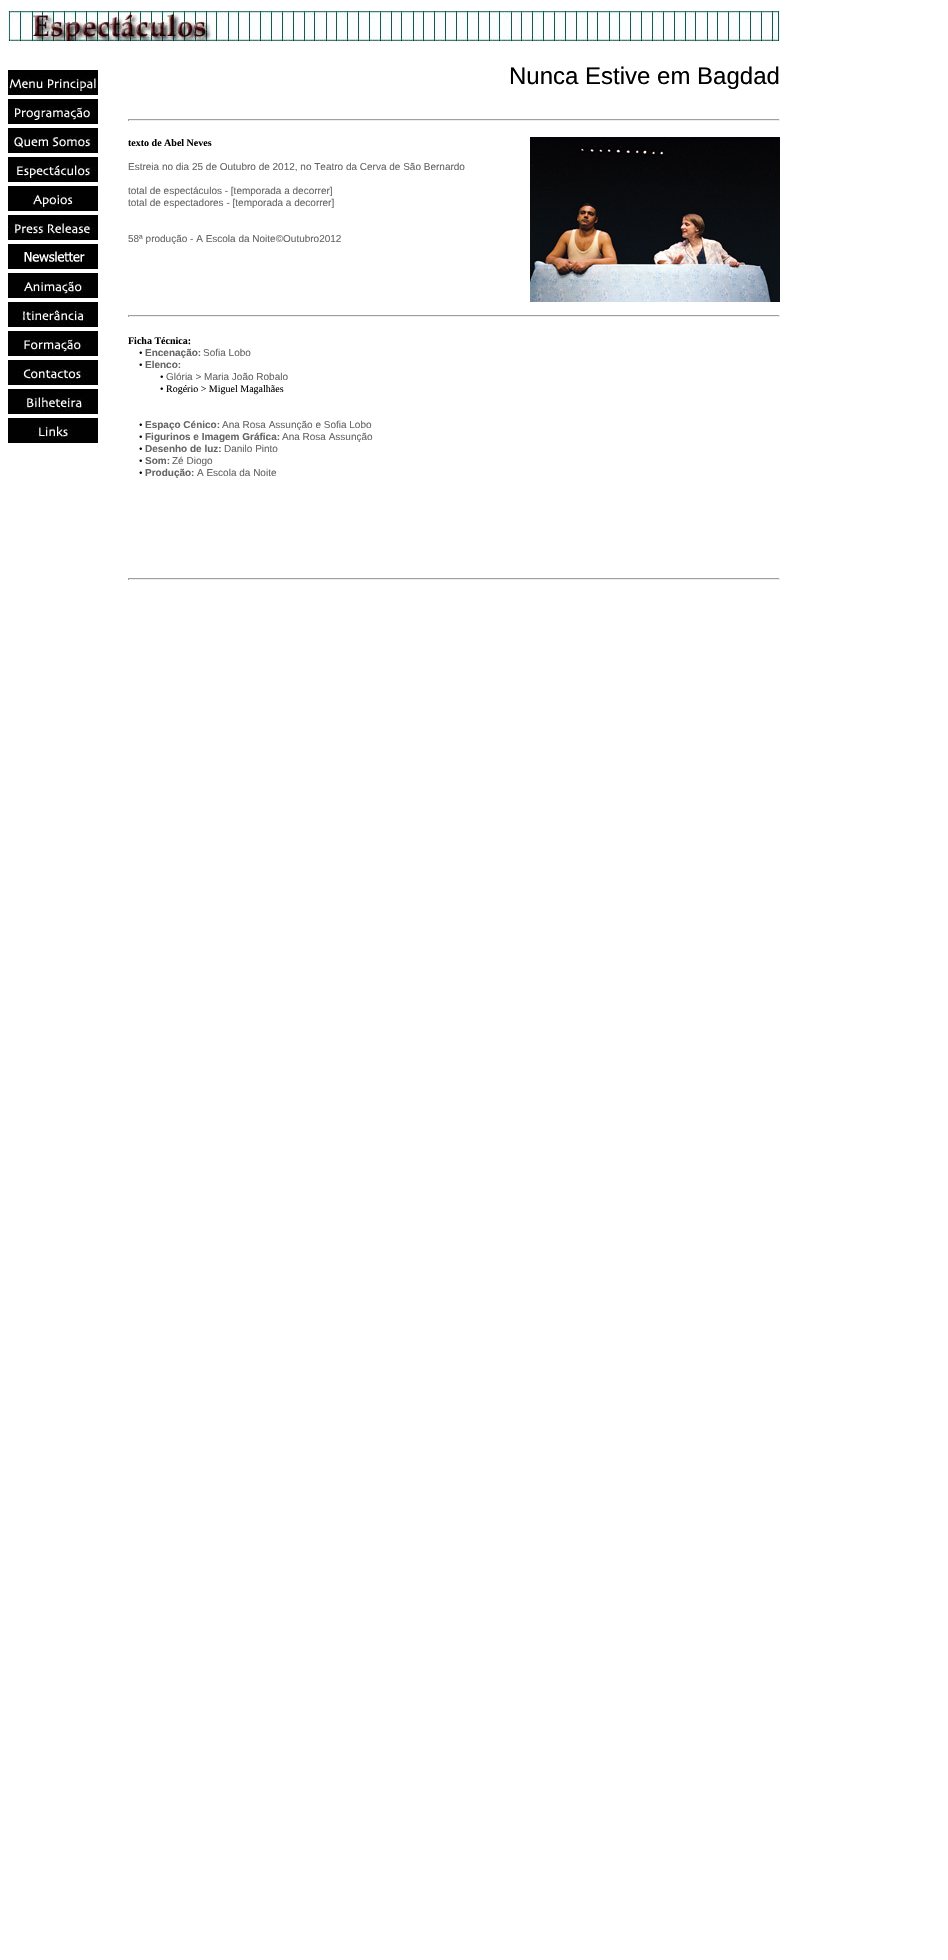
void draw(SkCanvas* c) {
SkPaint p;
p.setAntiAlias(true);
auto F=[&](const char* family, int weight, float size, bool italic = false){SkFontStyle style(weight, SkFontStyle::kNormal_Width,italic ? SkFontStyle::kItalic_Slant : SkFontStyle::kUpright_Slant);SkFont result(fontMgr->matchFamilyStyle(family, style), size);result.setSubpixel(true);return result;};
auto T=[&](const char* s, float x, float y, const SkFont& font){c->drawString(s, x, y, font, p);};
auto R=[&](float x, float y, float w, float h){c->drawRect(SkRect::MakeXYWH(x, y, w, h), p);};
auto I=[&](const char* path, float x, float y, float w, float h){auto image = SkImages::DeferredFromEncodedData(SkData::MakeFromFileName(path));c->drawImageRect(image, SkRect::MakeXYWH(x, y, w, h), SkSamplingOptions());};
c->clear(0xffffffff);
I("1.png",8,11,772,30);
I("2.png",8,70,90,25);
auto f1 = F("Liberation Sans",400,24);
p.setColor(0xff000000);
T("Nunca Estive em Bagdad",509,84,f1);
I("3.png",8,99,90,25);
p.setColor(0xff9f9f9f);
R(128,119,652,1);
p.setColor(0xffeeeeee);
R(779,119,1,2);
R(128,120,652,1);
p.setColor(0xff9f9f9f);
R(128,119,1,2);
I("4.png",8,128,90,25);
auto f2 = F("Liberation Serif",700,10);
p.setColor(0xff000000);
T("texto de Abel Neves",128,146,f2);
auto f3 = F("Liberation Sans",400,10);
p.setColor(0xff666666);
T("Estreia no dia 25 de Outubro de 2012, no Teatro da Cerva de São Bernardo",128,170,f3);
T("total de espectáculos - [temporada a decorrer]",128,194,f3);
T("total de espectadores - [temporada a decorrer]",128,206,f3);
T("58ª produção - A Escola da Noite©Outubro2012",128,242,f3);
I("5.png",530,137,250,165);
I("6.png",8,157,90,25);
I("7.png",8,186,90,25);
I("8.png",8,215,90,25);
I("9.png",8,244,90,25);
I("10.png",8,273,90,25);
I("11.png",8,302,90,25);
p.setColor(0xff9f9f9f);
R(128,315,652,1);
p.setColor(0xffeeeeee);
R(779,315,1,2);
R(128,316,652,1);
p.setColor(0xff9f9f9f);
R(128,315,1,2);
I("12.png",8,331,90,25);
p.setColor(0xff000000);
T("Ficha Técnica:",128,344,f2);
auto f4 = F("Liberation Serif",400,10);
T("•",139,356,f4);
auto f5 = F("Liberation Sans",700,10);
p.setColor(0xff666666);
T("Encenação:",145,356,f5);
T("Sofia Lobo",203,356,f3);
p.setColor(0xff000000);
T("•",139,368,f4);
p.setColor(0xff666666);
T("Elenco:",145,368,f5);
p.setColor(0xff000000);
T("•",160,380,f4);
p.setColor(0xff666666);
T("Glória > Maria João Robalo",166,380,f3);
p.setColor(0xff000000);
T("• Rogério > Miguel Magalhães",160,392,f4);
T("•",139,428,f4);
p.setColor(0xff666666);
T("Espaço Cénico:",145,428,f5);
T("Ana Rosa Assunção e Sofia Lobo",222,428,f3);
p.setColor(0xff000000);
T("•",139,440,f4);
p.setColor(0xff666666);
T("Figurinos e Imagem Gráfica:",145,440,f5);
T("Ana Rosa Assunção",282,440,f3);
p.setColor(0xff000000);
T("•",139,452,f4);
p.setColor(0xff666666);
T("Desenho de luz:",145,452,f5);
T("Danilo Pinto",224,452,f3);
p.setColor(0xff000000);
T("•",139,464,f4);
p.setColor(0xff666666);
T("Som:",145,464,f5);
T("Zé Diogo",172,464,f3);
p.setColor(0xff000000);
T("•",139,476,f4);
p.setColor(0xff666666);
T("Produção:",145,476,f5);
T("A Escola da Noite",197,476,f3);
I("13.png",8,360,90,25);
I("14.png",8,389,90,25);
I("15.png",8,418,90,25);
p.setColor(0xff9f9f9f);
R(128,578,652,1);
p.setColor(0xffeeeeee);
R(779,578,1,2);
R(128,579,652,1);
p.setColor(0xff9f9f9f);
R(128,578,1,2);
}
